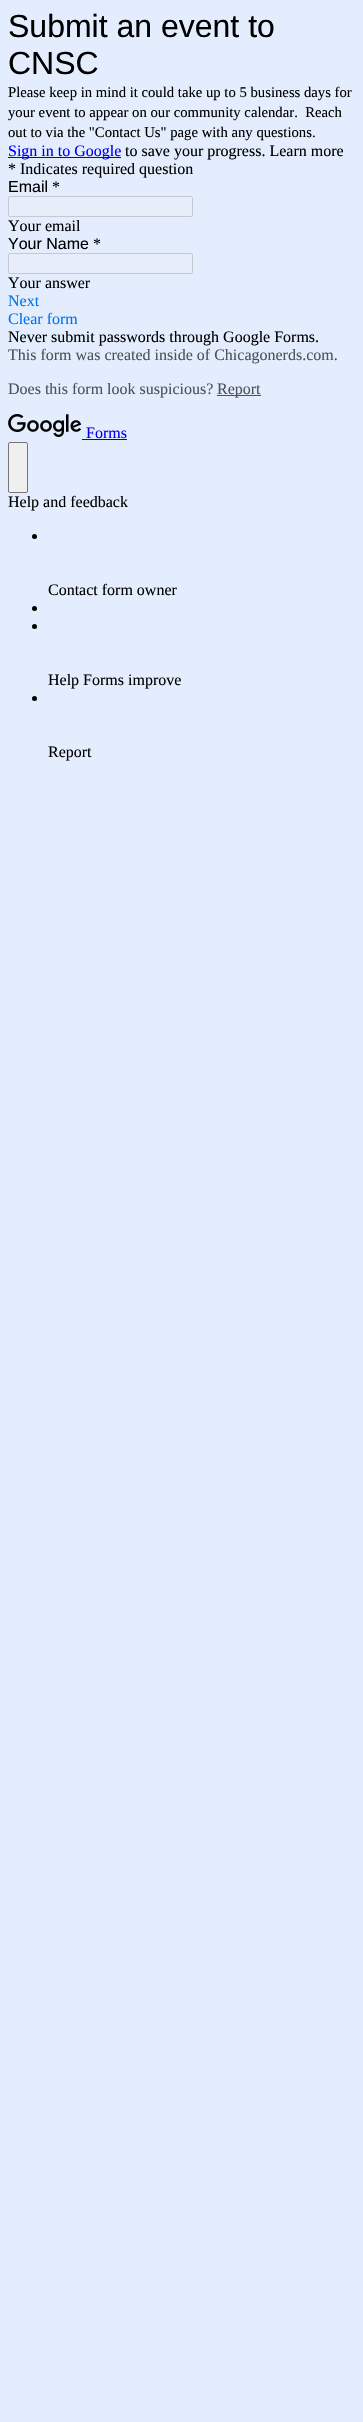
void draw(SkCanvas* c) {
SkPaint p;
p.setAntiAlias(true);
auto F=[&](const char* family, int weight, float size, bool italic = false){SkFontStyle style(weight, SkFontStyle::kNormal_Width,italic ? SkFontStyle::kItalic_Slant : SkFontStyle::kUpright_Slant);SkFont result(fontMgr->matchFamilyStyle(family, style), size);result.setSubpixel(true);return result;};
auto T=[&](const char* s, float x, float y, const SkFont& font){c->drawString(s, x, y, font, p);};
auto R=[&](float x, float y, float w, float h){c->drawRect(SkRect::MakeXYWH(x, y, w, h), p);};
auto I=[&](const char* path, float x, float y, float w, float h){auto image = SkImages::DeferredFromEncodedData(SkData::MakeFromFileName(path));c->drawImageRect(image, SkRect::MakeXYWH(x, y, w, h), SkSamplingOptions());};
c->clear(0xffe3edfd);
auto f1 = F("Liberation Sans",400,32);
p.setColor(0xff000000);
T("Submit an event to",8,37,f1);
T("CNSC",8,74,f1);
auto f2 = F("Liberation Serif",400,14.7);
T("Please keep in mind it could take up to 5 business days for",8,97,f2);
T("your event to appear on our community calendar.  Reach",8,117,f2);
T("out to via the \"Contact Us\" page with any questions.",8,137,f2);
p.setColor(0xff0000ee);
R(8,157,113,1);
auto f3 = F("Liberation Serif",400,16);
T("Sign in to Google",8,156,f3);
p.setColor(0xff000000);
T("to save your progress. Learn more",125,156,f3);
T("* Indicates required question",8,174,f3);
auto f4 = F("Liberation Sans",400,16);
T("Email",8,192,f4);
T("*",52,192,f3);
p.setColor(0xffe7eef9);
c->drawRoundRect(SkRect::MakeXYWH(8.5,196.5,184,20),1.5,1.5,p);
p.setStroke(true);
p.setStrokeWidth(1);
p.setColor(0xffc5cad2);
c->drawRoundRect(SkRect::MakeXYWH(8.5,196.5,184,20),1.5,1.5,p);
p.setStroke(false);
p.setColor(0xff000000);
T("Your email",8,231,f3);
T("Your Name",8,249,f4);
T("*",93,249,f3);
p.setColor(0xffe7eef9);
c->drawRoundRect(SkRect::MakeXYWH(8.5,253.5,184,20),1.5,1.5,p);
p.setStroke(true);
p.setColor(0xffc5cad2);
c->drawRoundRect(SkRect::MakeXYWH(8.5,253.5,184,20),1.5,1.5,p);
p.setStroke(false);
p.setColor(0xff000000);
T("Your answer",8,288,f3);
p.setColor(0xff0074ed);
T("Next",8,306,f3);
T("Clear form",8,324,f3);
p.setColor(0xff000000);
T("Never submit passwords through Google Forms.",8,342,f3);
p.setColor(0xff4d5156);
T("This form was created inside of Chicagonerds.com.",8,360,f3);
T("Does this form look suspicious?",8,394,f3);
R(217,395,44,1);
T("Report",217,394,f3);
I("1.png",8,414,74,23);
p.setColor(0xff0000ee);
T("Forms",86,438,f3);
R(82,439,45,1);
p.setColor(0xffefefef);
c->drawRoundRect(SkRect::MakeXYWH(8.5,442.5,19,50),1.5,1.5,p);
p.setStroke(true);
p.setColor(0xff767676);
c->drawRoundRect(SkRect::MakeXYWH(8.5,442.5,19,50),1.5,1.5,p);
p.setStroke(false);
p.setColor(0xff000000);
T("Help and feedback",8,507,f3);
c->drawCircle(34.5,536.5,2.5,p);
T("Contact form owner",48,595,f3);
c->drawCircle(34.5,608.5,2.5,p);
c->drawCircle(34.5,626.5,2.5,p);
T("Help Forms improve",48,685,f3);
c->drawCircle(34.5,698.5,2.5,p);
T("Report",48,757,f3);
}
